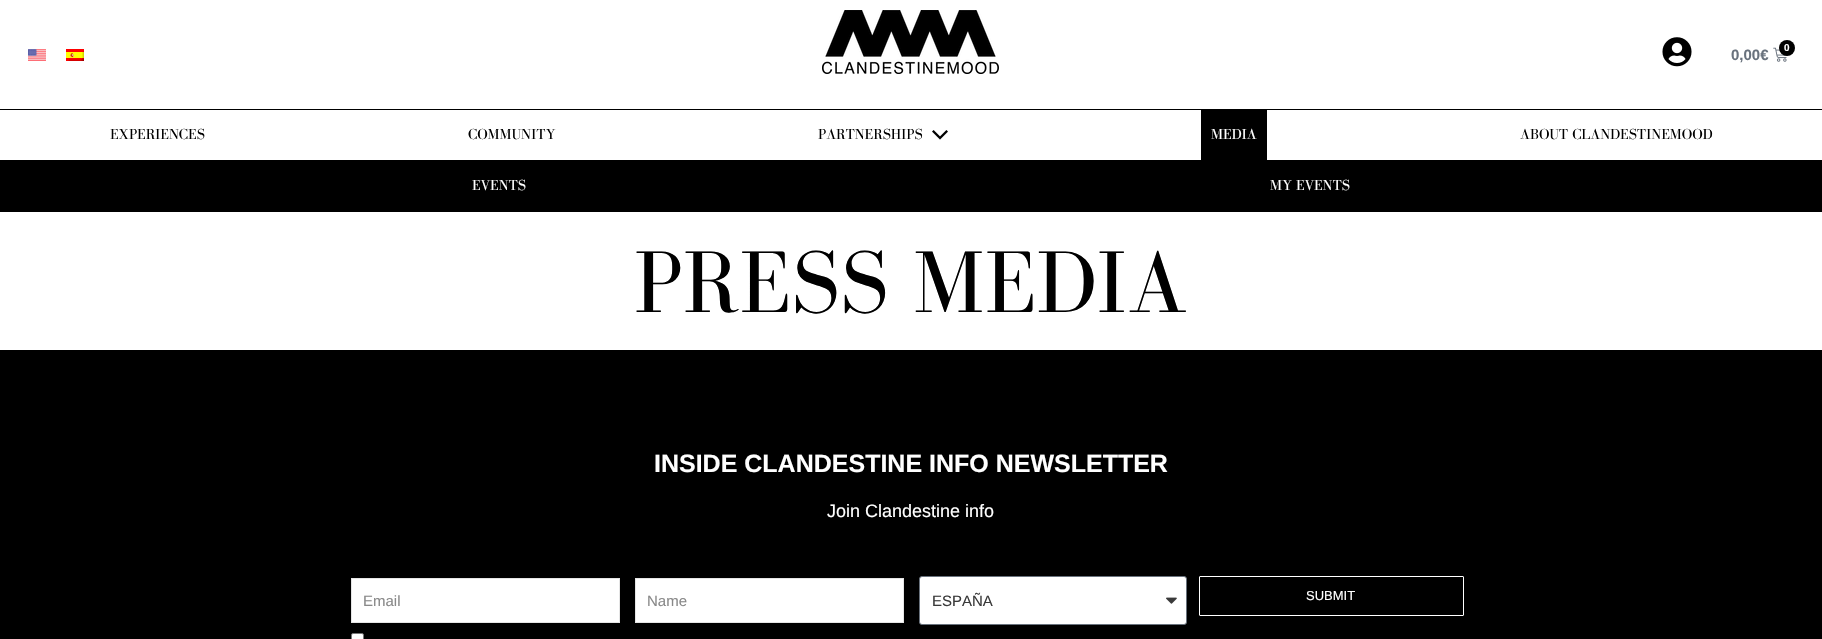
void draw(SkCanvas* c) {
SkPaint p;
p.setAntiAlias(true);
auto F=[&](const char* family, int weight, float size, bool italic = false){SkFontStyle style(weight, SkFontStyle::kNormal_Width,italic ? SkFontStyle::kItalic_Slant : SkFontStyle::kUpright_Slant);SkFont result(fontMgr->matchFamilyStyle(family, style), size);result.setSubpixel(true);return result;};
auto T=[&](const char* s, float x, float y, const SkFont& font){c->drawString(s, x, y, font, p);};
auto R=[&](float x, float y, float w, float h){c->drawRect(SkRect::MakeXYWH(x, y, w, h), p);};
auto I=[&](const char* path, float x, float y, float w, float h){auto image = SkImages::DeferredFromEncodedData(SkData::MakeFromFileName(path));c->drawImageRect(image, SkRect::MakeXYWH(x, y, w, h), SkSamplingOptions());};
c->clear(0xffffffff);
I("1.png",28,49,18,12);
I("2.png",66,49,18,12);
I("3.png",822,10,177,64);
I("4.png",1662,37,30,30);
I("5.png",1773,47,14,15);
p.setColor(0xff000000);
c->drawCircle(1787,48,8,p);
auto f1 = F("Liberation Sans",700,10);
p.setColor(0xffffffff);
T("0",1784,51,f1);
auto f2 = F("Liberation Sans",700,15);
p.setColor(0xff69727d);
T("0,00€",1731,60,f2);
p.setColor(0xff000000);
R(0,109,1822,1);
auto f3 = F("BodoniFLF",400,15);
T("EXPERIENCES",110,139,f3);
T("COMMUNITY",468,139,f3);
T("PARTNERSHIPS",818,139,f3);
I("6.png",932,130,16,10);
R(1201,110,66,50);
p.setColor(0xffffffff);
T("MEDIA",1211,139,f3);
p.setColor(0xff000000);
T("ABOUT CLANDESTINEMOOD",1520,139,f3);
R(0,160,1822,52);
p.setColor(0xffffffff);
T("EVENTS",472,190,f3);
T("MY EVENTS",1270,190,f3);
auto f4 = F("BodoniFLF",400,90);
p.setColor(0xff000000);
T("PRESS MEDIA",634,312,f4);
R(0,350,1822,289);
auto f5 = F("Liberation Sans",700,25);
p.setColor(0xffffffff);
T("INSIDE CLANDESTINE INFO NEWSLETTER",654,472,f5);
auto f6 = F("Liberation Sans",400,18);
T("Join Clandestine info",827,517,f6);
c->drawRect(SkRect::MakeXYWH(351.5,578.5,268,44),p);
p.setStroke(true);
p.setStrokeWidth(1);
p.setColor(0xffe5e5e5);
c->drawRect(SkRect::MakeXYWH(351.5,578.5,268,44),p);
auto f7 = F("Liberation Sans",400,15);
p.setStroke(false);
p.setColor(0xff898989);
T("Email",363,606,f7);
p.setColor(0xffffffff);
c->drawRect(SkRect::MakeXYWH(635.5,578.5,268,44),p);
p.setStroke(true);
p.setColor(0xffe5e5e5);
c->drawRect(SkRect::MakeXYWH(635.5,578.5,268,44),p);
p.setStroke(false);
p.setColor(0xff898989);
T("Name",647,606,f7);
p.setColor(0xffffffff);
c->drawRoundRect(SkRect::MakeXYWH(919.5,576.5,267,48),2.5,2.5,p);
p.setStroke(true);
p.setColor(0xff69727d);
c->drawRoundRect(SkRect::MakeXYWH(919.5,576.5,267,48),2.5,2.5,p);
p.setStroke(false);
p.setColor(0xff3a3a3a);
T("ESPAÑA",932,606,f7);
I("7.png",1166,597,11,7);
p.setStroke(true);
p.setColor(0xffffffff);
c->drawRoundRect(SkRect::MakeXYWH(1199.5,576.5,264,39),.5,.5,p);
auto f8 = F("Liberation Sans",400,13);
p.setStroke(false);
T("SUBMIT",1306,600,f8);
c->drawRoundRect(SkRect::MakeXYWH(351.5,633.5,12,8),1.5,1.5,p);
p.setStroke(true);
p.setColor(0xff767676);
c->drawRoundRect(SkRect::MakeXYWH(351.5,633.5,12,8),1.5,1.5,p);
}
